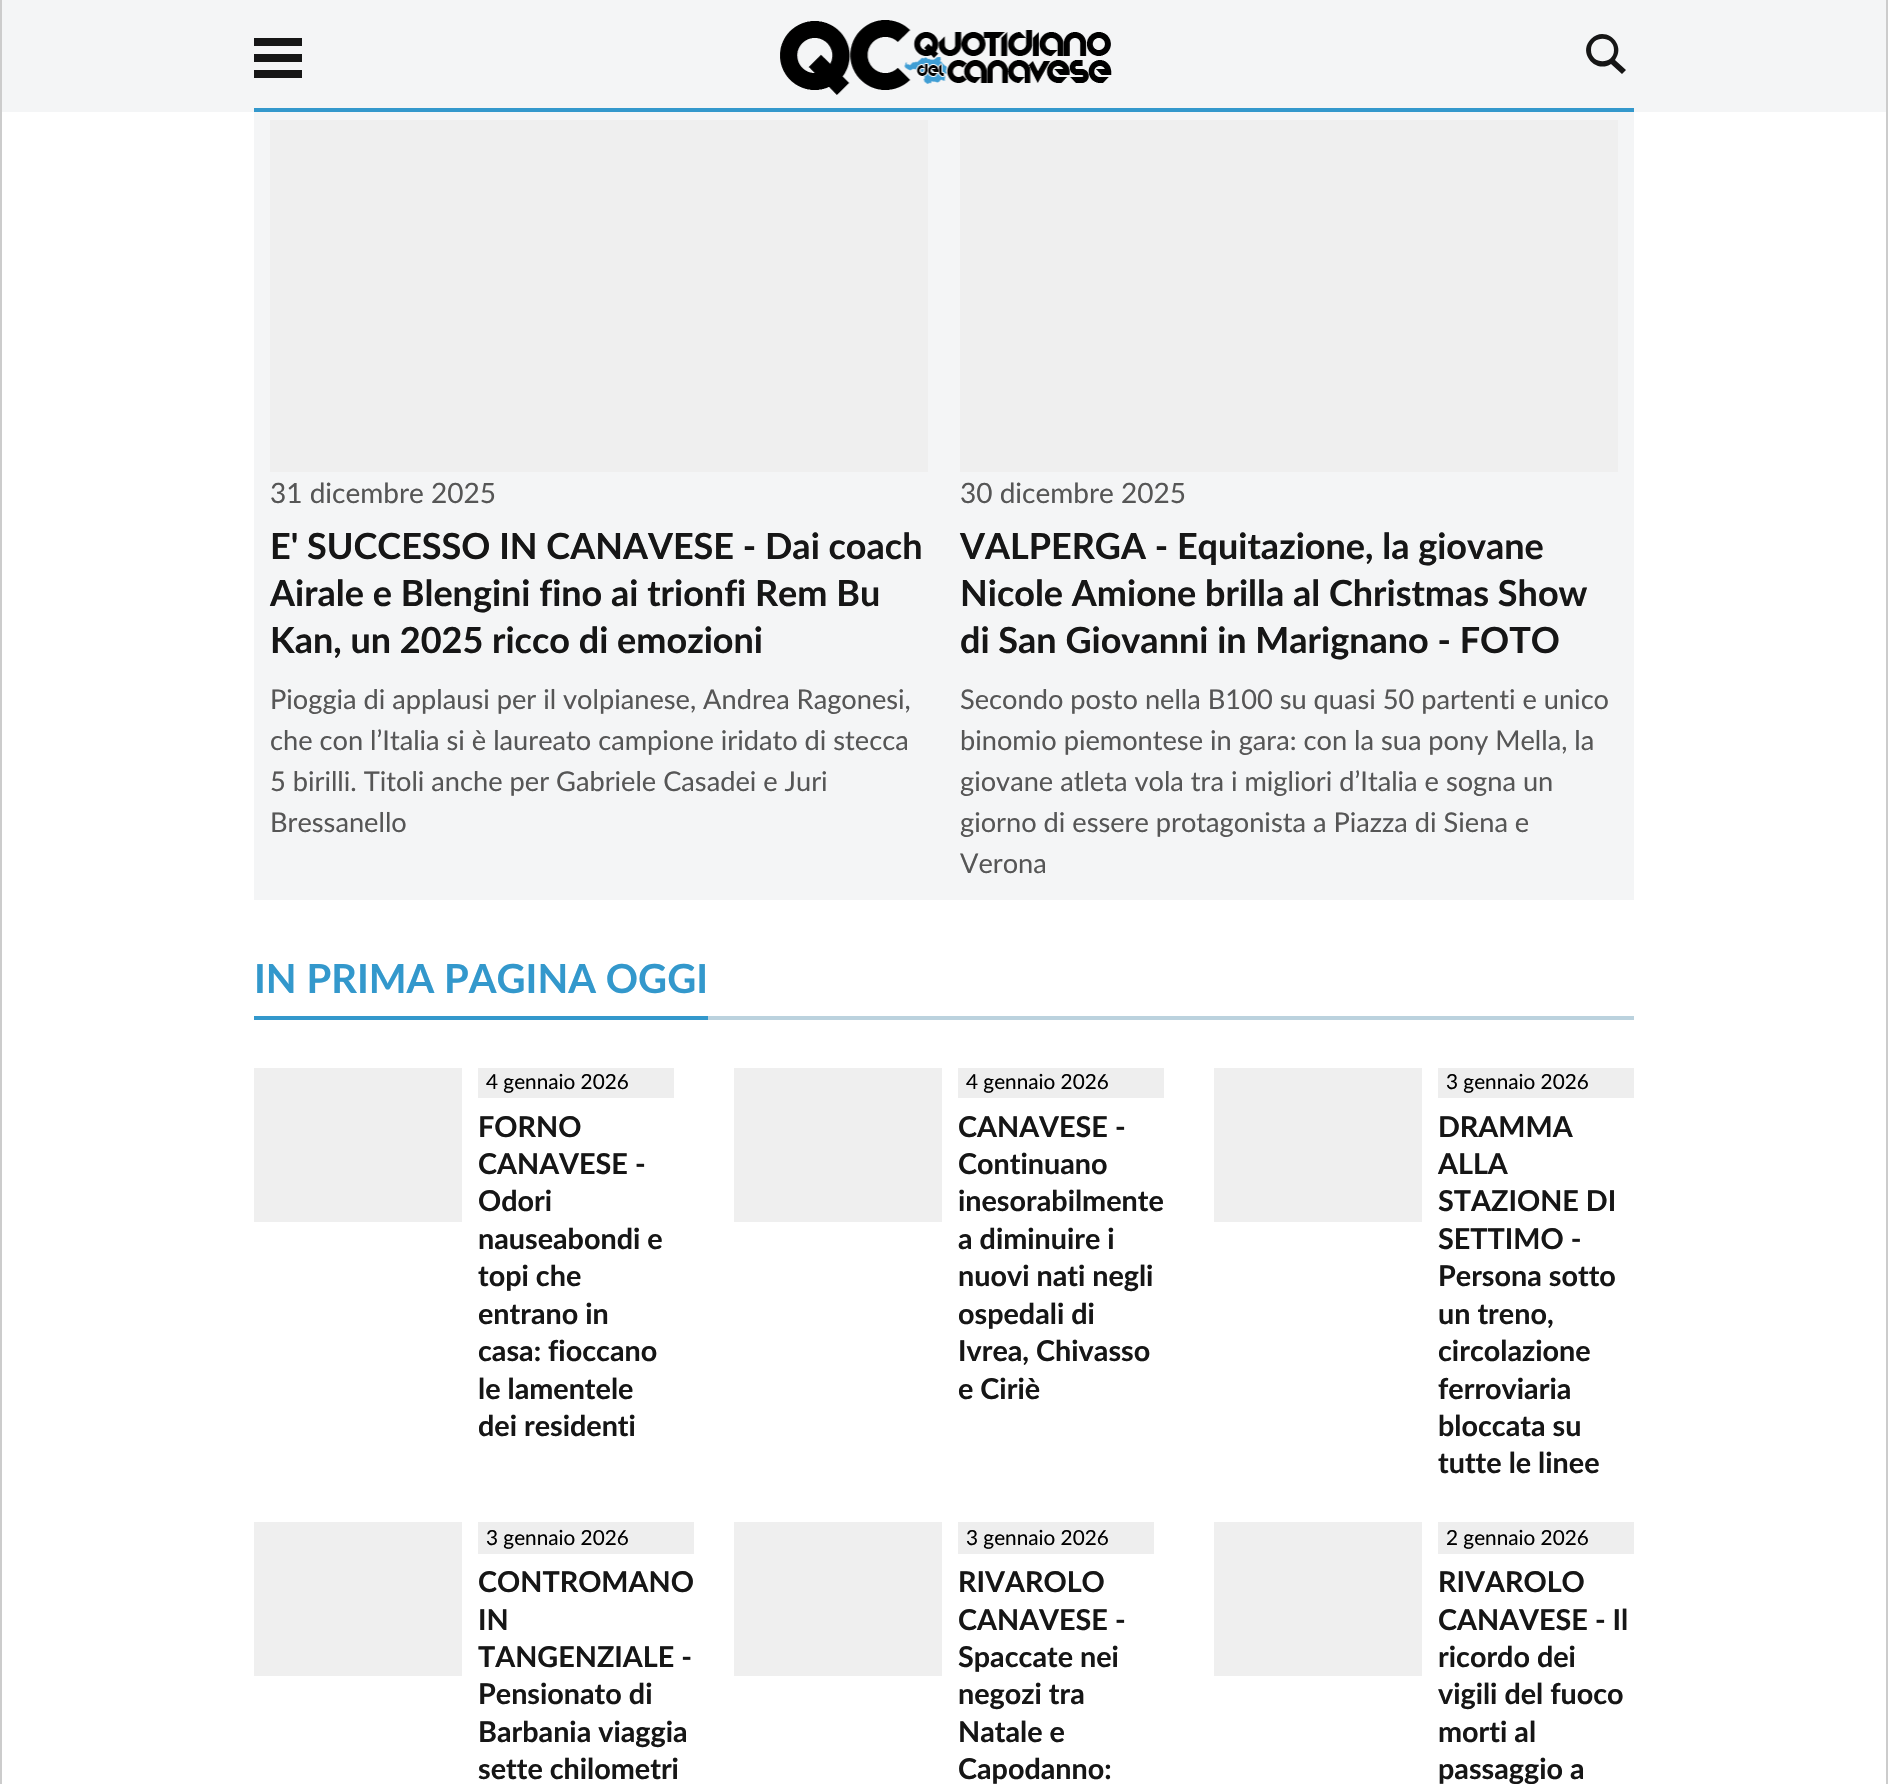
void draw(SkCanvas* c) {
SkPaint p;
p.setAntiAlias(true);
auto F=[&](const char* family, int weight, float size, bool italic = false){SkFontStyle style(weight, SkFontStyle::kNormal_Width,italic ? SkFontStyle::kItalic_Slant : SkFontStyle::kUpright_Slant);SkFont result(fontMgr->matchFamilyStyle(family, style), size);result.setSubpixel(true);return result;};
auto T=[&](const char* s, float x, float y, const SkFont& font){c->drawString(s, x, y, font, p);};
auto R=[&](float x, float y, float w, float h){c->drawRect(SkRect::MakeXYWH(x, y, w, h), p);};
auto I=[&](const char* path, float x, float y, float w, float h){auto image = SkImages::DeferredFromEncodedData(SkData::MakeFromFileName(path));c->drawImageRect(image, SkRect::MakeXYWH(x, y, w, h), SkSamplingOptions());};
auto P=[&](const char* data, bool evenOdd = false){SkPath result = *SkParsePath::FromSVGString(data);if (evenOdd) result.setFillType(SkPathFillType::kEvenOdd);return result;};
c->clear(0xffffffff);
p.setStroke(true);
p.setStrokeWidth(2);
p.setColor(0xffcccccc);
c->drawRect(SkRect::MakeXYWH(1,-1,1886,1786),p);
p.setStroke(false);
p.setColor(0xfff4f5f6);
R(2,0,1884,112);
p.setColor(0xff3398cc);
R(254,108,1380,4);
p.setColor(0xff161616);
c->drawPath(P("M302 46h-48v-8h48zm0 8h-48v8h48zm0 16h-48v8h48z"),p);
I("1.png",780,20,332,75);
c->drawPath(P("M1626 70l-11-10c12-16-10-35-24-21c-14 14 5 35 20 25l11 10zm-35-20c0-15 23-15 23 0c0 15-23 15-23 0z"),p);
p.setColor(0xfff4f5f6);
R(254,112,1380,788);
p.setColor(0xffefefef);
R(270,120,658,352);
auto f1 = F("Lato",400,28);
p.setColor(0xff565656);
T("31 dicembre 2025",270,503,f1);
auto f2 = F("Lato",700,36);
p.setColor(0xff161616);
T("E' SUCCESSO IN CANAVESE - Dai coach",270,559,f2);
T("Airale e Blengini fino ai trionfi Rem Bu",270,606,f2);
T("Kan, un 2025 ricco di emozioni",270,653,f2);
auto f3 = F("Lato",400,27.2);
p.setColor(0xff565656);
T("Pioggia di applausi per il volpianese, Andrea Ragonesi,",270,709,f3);
T("che con l’Italia si è laureato campione iridato di stecca",270,750,f3);
T("5 birilli. Titoli anche per Gabriele Casadei e Juri",270,791,f3);
T("Bressanello",270,832,f3);
p.setColor(0xffefefef);
R(960,120,658,352);
p.setColor(0xff565656);
T("30 dicembre 2025",960,503,f1);
p.setColor(0xff161616);
T("VALPERGA - Equitazione, la giovane",960,559,f2);
T("Nicole Amione brilla al Christmas Show",960,606,f2);
T("di San Giovanni in Marignano - FOTO",960,653,f2);
p.setColor(0xff565656);
T("Secondo posto nella B100 su quasi 50 partenti e unico",960,709,f3);
T("binomio piemontese in gara: con la sua pony Mella, la",960,750,f3);
T("giovane atleta vola tra i migliori d’Italia e sogna un",960,791,f3);
T("giorno di essere protagonista a Piazza di Siena e",960,832,f3);
T("Verona",960,873,f3);
p.setColor(0xffbbd2de);
R(708,1016,926,4);
p.setColor(0xff3398cc);
R(254,1016,454,4);
auto f4 = F("Lato",700,40);
T("IN PRIMA PAGINA OGGI",254,993,f4);
p.setColor(0xffefefef);
R(254,1068,208,154);
p.setColor(0xffeeeeee);
R(478,1068,196,30);
auto f5 = F("Lato",400,20.75);
p.setColor(0xff000000);
T("4 gennaio 2026",486,1089,f5);
auto f6 = F("Lato",700,28.75);
p.setColor(0xff161616);
T("FORNO",478,1137,f6);
T("CANAVESE -",478,1174,f6);
T("Odori",478,1211,f6);
T("nauseabondi e",478,1249,f6);
T("topi che",478,1286,f6);
T("entrano in",478,1324,f6);
T("casa: fioccano",478,1361,f6);
T("le lamentele",478,1399,f6);
T("dei residenti",478,1436,f6);
p.setColor(0xffefefef);
R(734,1068,208,154);
p.setColor(0xffeeeeee);
R(958,1068,206,30);
p.setColor(0xff000000);
T("4 gennaio 2026",966,1089,f5);
p.setColor(0xff161616);
T("CANAVESE -",958,1137,f6);
T("Continuano",958,1174,f6);
T("inesorabilmente",958,1211,f6);
T("a diminuire i",958,1249,f6);
T("nuovi nati negli",958,1286,f6);
T("ospedali di",958,1324,f6);
T("Ivrea, Chivasso",958,1361,f6);
T("e Ciriè",958,1399,f6);
p.setColor(0xffefefef);
R(1214,1068,208,154);
p.setColor(0xffeeeeee);
R(1438,1068,196,30);
p.setColor(0xff000000);
T("3 gennaio 2026",1446,1089,f5);
p.setColor(0xff161616);
T("DRAMMA",1438,1137,f6);
T("ALLA",1438,1174,f6);
T("STAZIONE DI",1438,1211,f6);
T("SETTIMO -",1438,1249,f6);
T("Persona sotto",1438,1286,f6);
T("un treno,",1438,1324,f6);
T("circolazione",1438,1361,f6);
T("ferroviaria",1438,1399,f6);
T("bloccata su",1438,1436,f6);
T("tutte le linee",1438,1473,f6);
p.setColor(0xffefefef);
R(254,1522,208,154);
p.setColor(0xffeeeeee);
R(478,1522,216,32);
p.setColor(0xff000000);
T("3 gennaio 2026",486,1545,f5);
p.setColor(0xff161616);
T("CONTROMANO",478,1592,f6);
T("IN",478,1630,f6);
T("TANGENZIALE -",478,1667,f6);
T("Pensionato di",478,1704,f6);
T("Barbania viaggia",478,1742,f6);
T("sette chilometri",478,1779,f6);
p.setColor(0xffefefef);
R(734,1522,208,154);
p.setColor(0xffeeeeee);
R(958,1522,196,32);
p.setColor(0xff000000);
T("3 gennaio 2026",966,1545,f5);
p.setColor(0xff161616);
T("RIVAROLO",958,1592,f6);
T("CANAVESE -",958,1630,f6);
T("Spaccate nei",958,1667,f6);
T("negozi tra",958,1704,f6);
T("Natale e",958,1742,f6);
T("Capodanno:",958,1779,f6);
p.setColor(0xffefefef);
R(1214,1522,208,154);
p.setColor(0xffeeeeee);
R(1438,1522,196,32);
p.setColor(0xff000000);
T("2 gennaio 2026",1446,1545,f5);
p.setColor(0xff161616);
T("RIVAROLO",1438,1592,f6);
T("CANAVESE - Il",1438,1630,f6);
T("ricordo dei",1438,1667,f6);
T("vigili del fuoco",1438,1704,f6);
T("morti al",1438,1742,f6);
T("passaggio a",1438,1779,f6);
}
